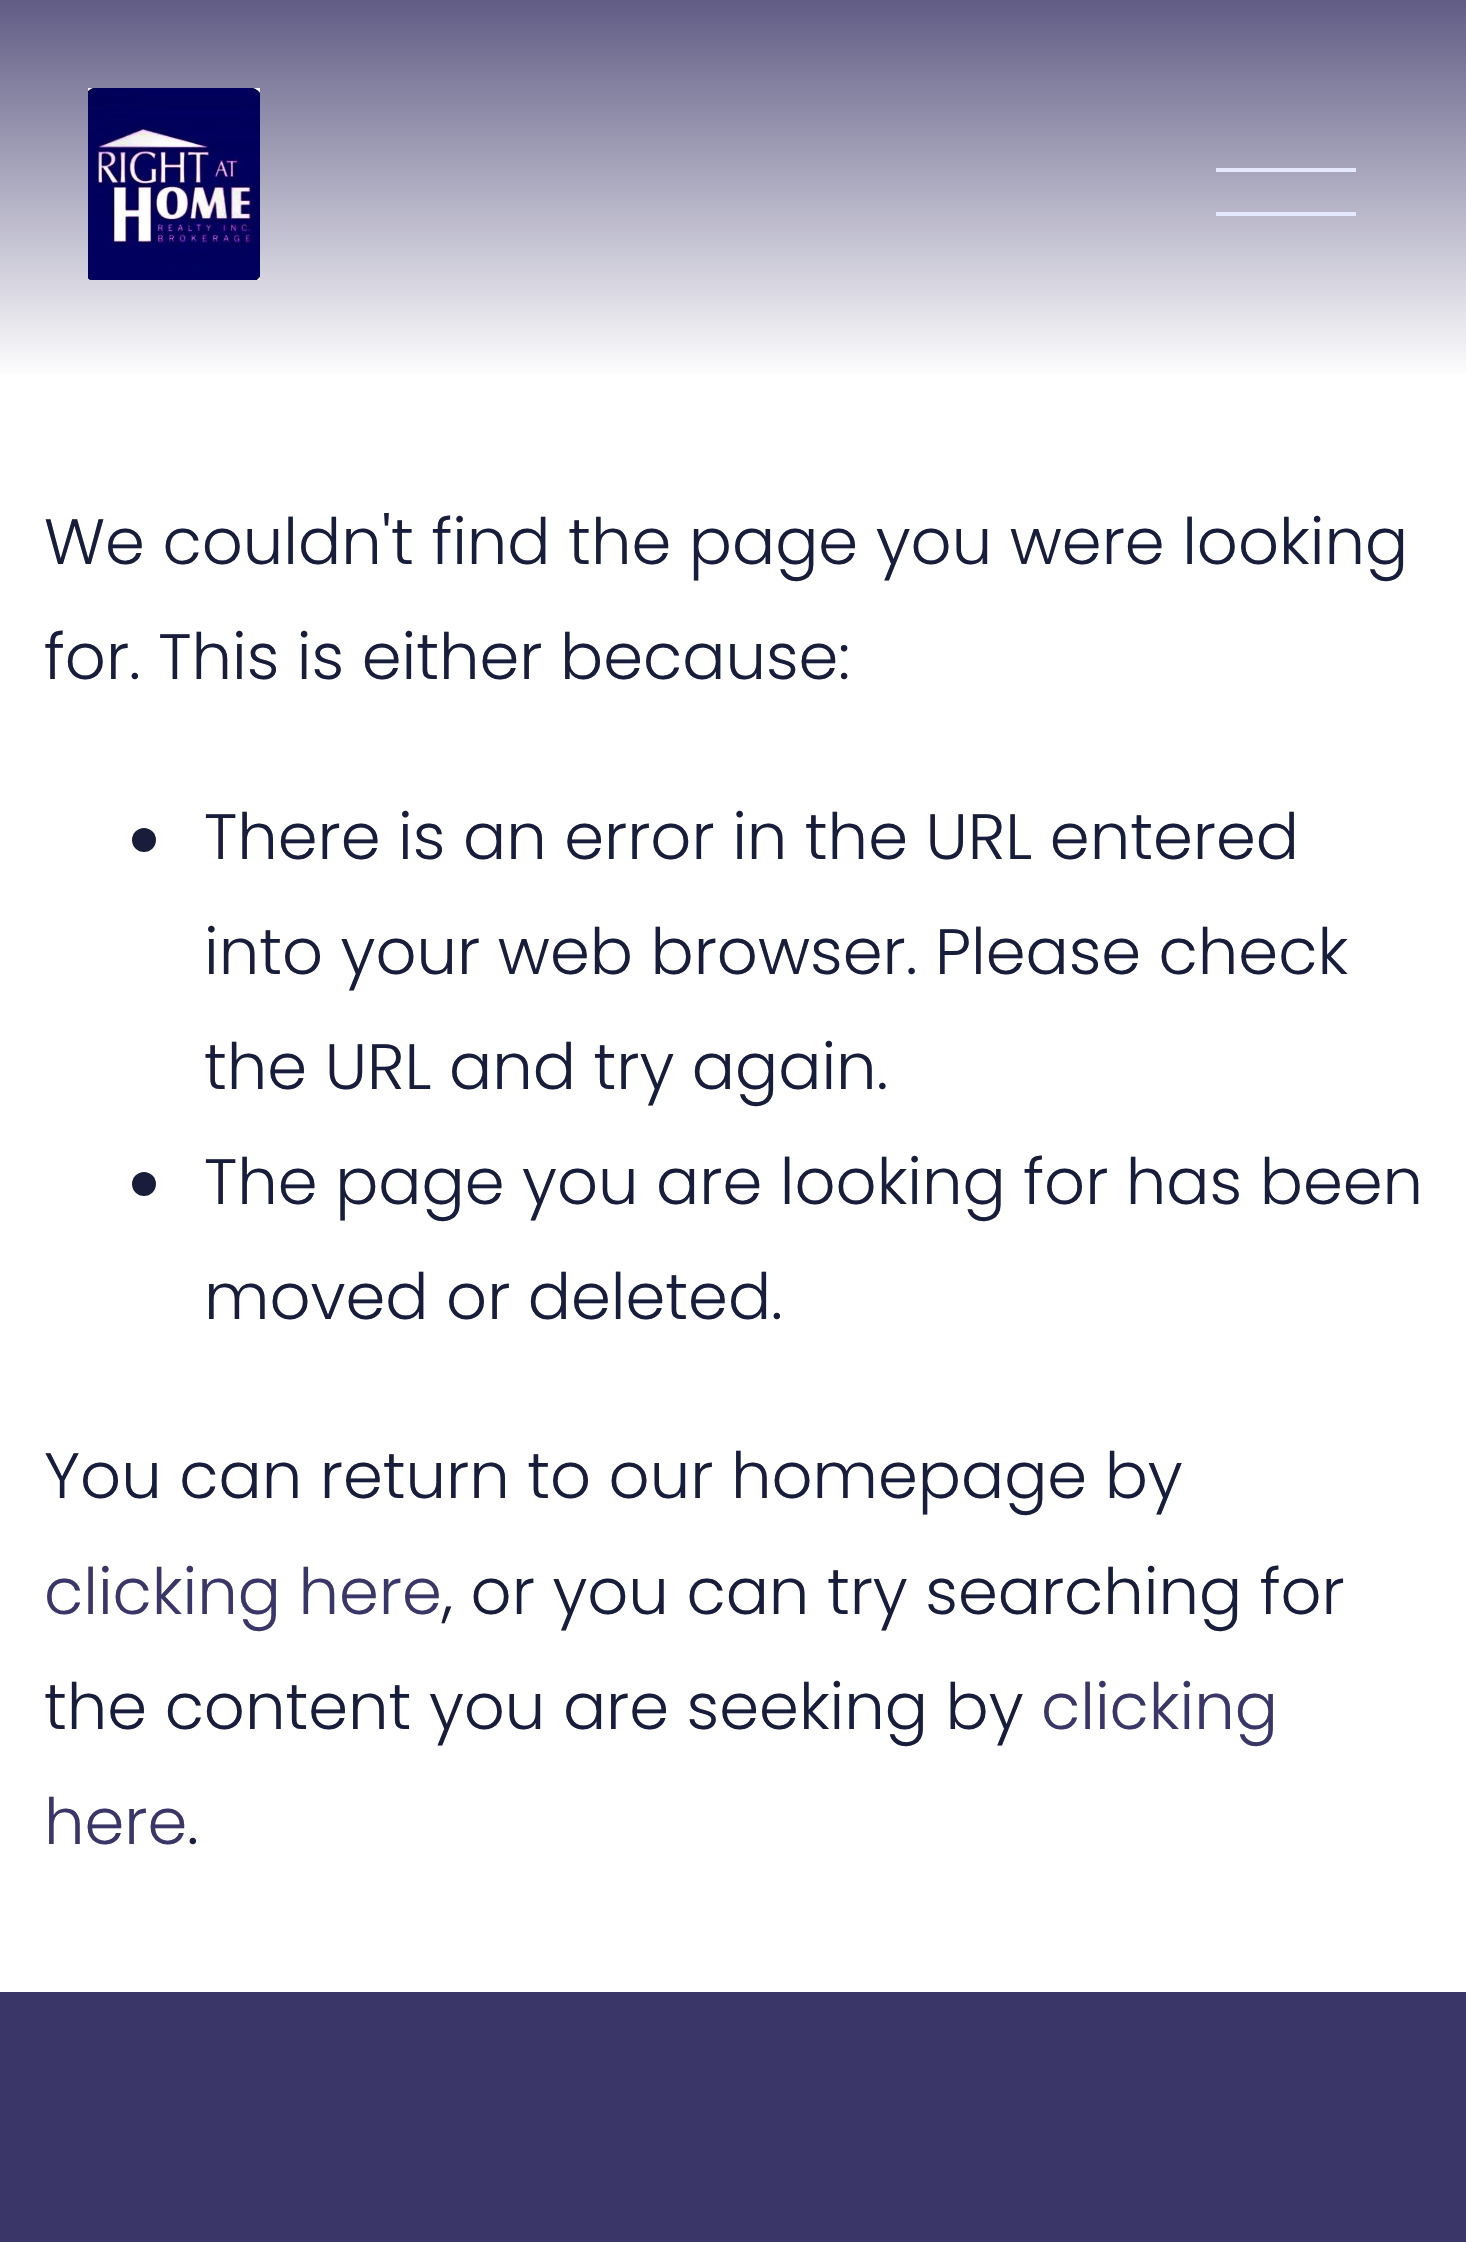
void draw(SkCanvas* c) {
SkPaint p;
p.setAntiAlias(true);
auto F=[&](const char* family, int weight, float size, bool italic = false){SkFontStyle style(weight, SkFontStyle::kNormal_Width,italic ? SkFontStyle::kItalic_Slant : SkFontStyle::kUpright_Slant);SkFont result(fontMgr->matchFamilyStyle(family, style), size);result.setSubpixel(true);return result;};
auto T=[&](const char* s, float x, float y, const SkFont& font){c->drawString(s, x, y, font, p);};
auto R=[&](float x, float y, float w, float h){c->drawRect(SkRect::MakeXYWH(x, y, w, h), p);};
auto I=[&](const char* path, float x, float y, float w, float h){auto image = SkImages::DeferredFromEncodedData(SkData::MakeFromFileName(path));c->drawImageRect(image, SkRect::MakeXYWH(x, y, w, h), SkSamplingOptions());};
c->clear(0xffffffff);
{
const SkColor colors[] = {0xff605c85,0xffffffff};
const float stops[] = {0,1};
const SkPoint ends[] = {{734,0}, {734,380}};
p.setShader(SkGradientShader::MakeLinear(ends, colors, stops, 2, SkTileMode::kClamp));
p.setAlpha(255);
}
R(0,0,1466,374);
I("1.png",88,88,172,192);
p.setShader(nullptr);
p.setColor(0xffe5e9fd);
R(1216,168,140,4);
R(1216,212,140,4);
auto f1 = F("Poppins",300,64);
p.setColor(0xff171d3a);
T("We couldn't find the page you were looking",44,564,f1);
T("for. This is either because:",44,679,f1);
c->drawCircle(144,840,12,p);
T("There is an error in the URL entered",204,859,f1);
T("into your web browser. Please check",204,974,f1);
T("the URL and try again.",204,1089,f1);
c->drawCircle(144,1184,12,p);
T("The page you are looking for has been",204,1204,f1);
T("moved or deleted.",204,1319,f1);
T("You can return to our homepage by",44,1498,f1);
p.setColor(0xff3a3668);
T("clicking here",44,1614,f1);
p.setColor(0xff171d3a);
T(", or you can try searching for",442,1614,f1);
T("the content you are seeking by",44,1729,f1);
p.setColor(0xff3a3668);
T("clicking",1041,1729,f1);
T("here",44,1844,f1);
p.setColor(0xff171d3a);
T(".",187,1844,f1);
p.setColor(0xff3a3668);
R(0,1992,1466,250);
}
